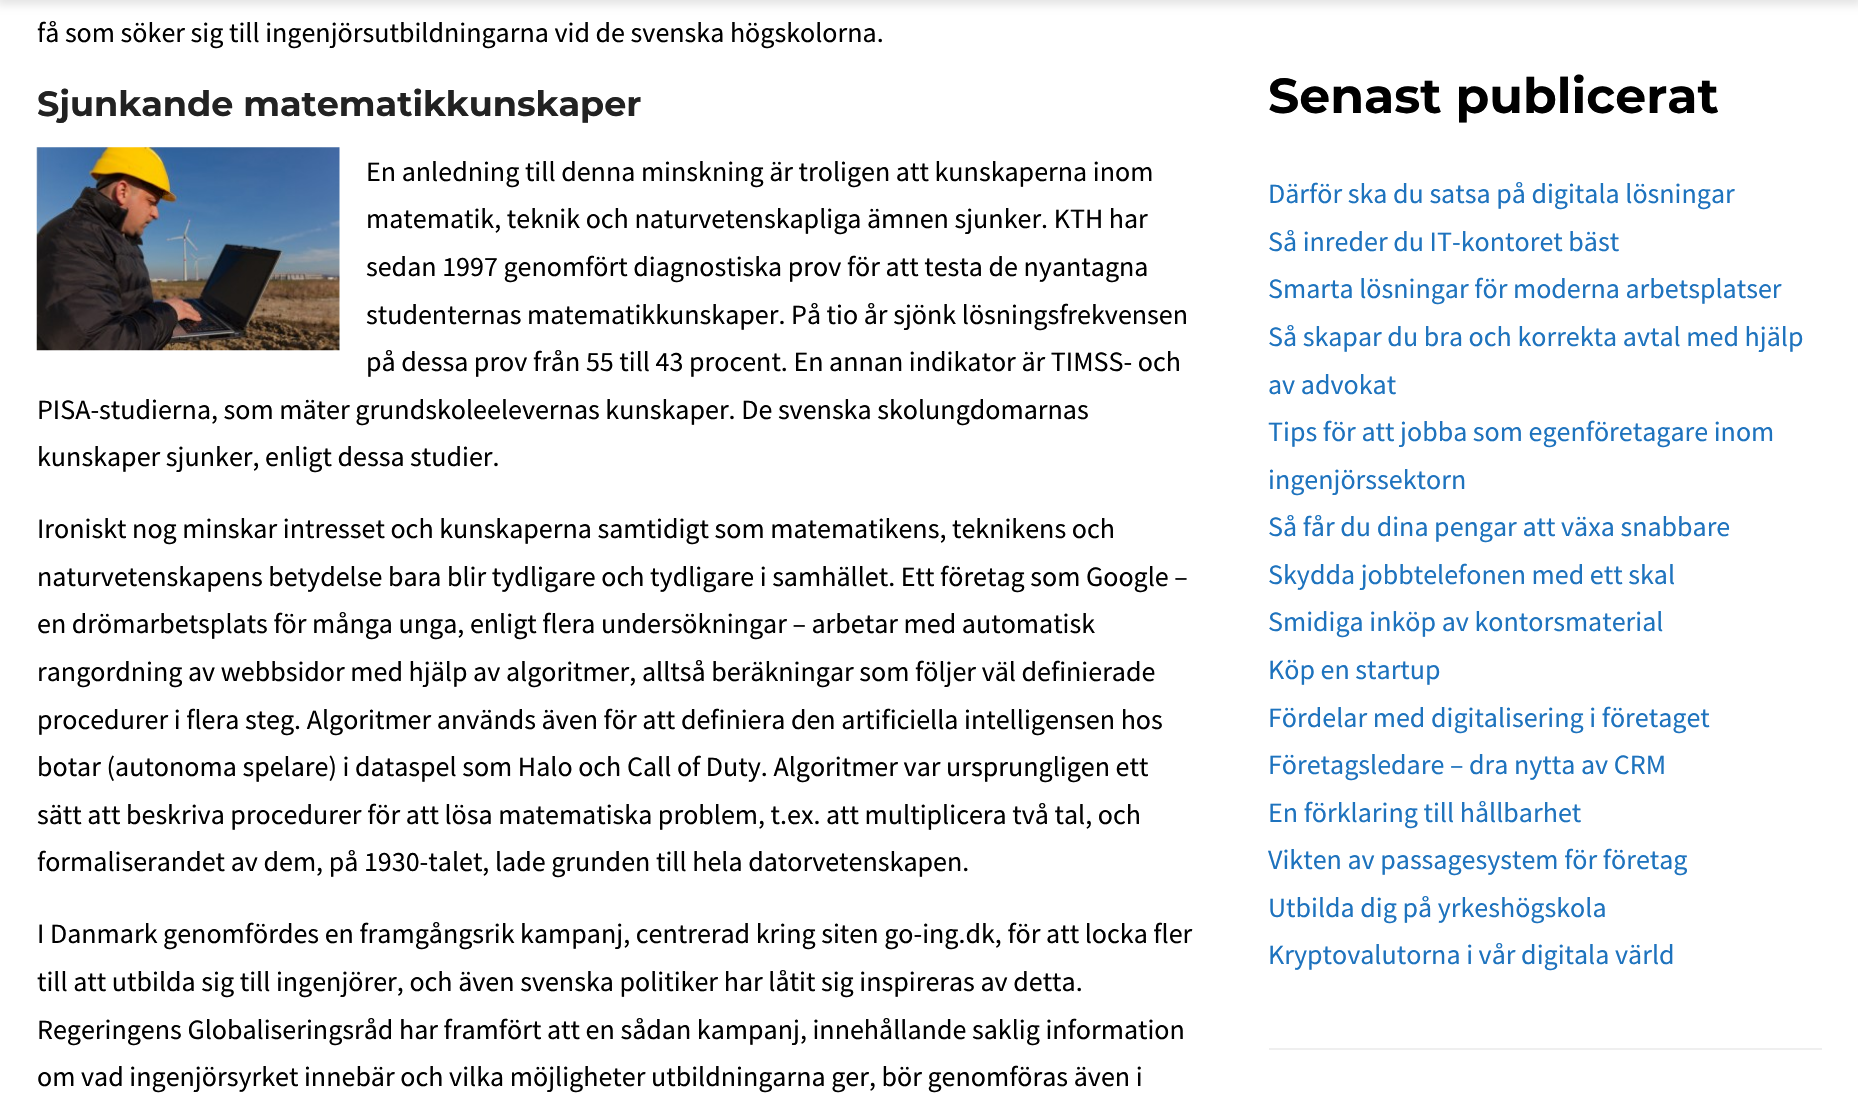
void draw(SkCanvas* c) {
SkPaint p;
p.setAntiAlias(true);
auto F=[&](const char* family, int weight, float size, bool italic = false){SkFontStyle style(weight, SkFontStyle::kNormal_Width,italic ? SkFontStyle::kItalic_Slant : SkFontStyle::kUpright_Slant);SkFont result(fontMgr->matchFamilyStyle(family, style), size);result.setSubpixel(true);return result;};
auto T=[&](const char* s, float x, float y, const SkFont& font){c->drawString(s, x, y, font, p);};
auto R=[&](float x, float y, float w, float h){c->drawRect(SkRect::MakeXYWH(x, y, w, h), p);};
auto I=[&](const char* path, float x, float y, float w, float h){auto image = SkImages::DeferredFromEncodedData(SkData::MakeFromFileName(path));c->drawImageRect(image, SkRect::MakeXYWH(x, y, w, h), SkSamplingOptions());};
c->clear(0xffffffff);
p.setColor(0x1a000000);
p.setMaskFilter(SkMaskFilter::MakeBlur(kNormal_SkBlurStyle, 4.5));
c->drawRect(SkRect::MakeXYWH(-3,-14,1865,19),p);
p.setMaskFilter(nullptr);
auto f1 = F("Source Sans Pro",400,28);
p.setColor(0xff000000);
T("få som söker sig till ingenjörsutbildningarna vid de svenska högskolorna.",37,42,f1);
auto f2 = F("Montserrat",700,35);
p.setColor(0xff222222);
T("Sjunkande matematikkunskaper",37,116,f2);
I("1.png",36,147,304,204);
p.setColor(0xff000000);
T("En anledning till denna minskning är troligen att kunskaperna inom",366,181,f1);
T("matematik, teknik och naturvetenskapliga ämnen sjunker. KTH har",366,228,f1);
T("sedan 1997 genomfört diagnostiska prov för att testa de nyantagna",366,276,f1);
T("studenternas matematikkunskaper. På tio år sjönk lösningsfrekvensen",366,324,f1);
T("på dessa prov från 55 till 43 procent. En annan indikator är TIMSS- och",366,371,f1);
T("PISA-studierna, som mäter grundskoleelevernas kunskaper. De svenska skolungdomarnas",37,419,f1);
T("kunskaper sjunker, enligt dessa studier.",37,466,f1);
T("Ironiskt nog minskar intresset och kunskaperna samtidigt som matematikens, teknikens och",37,538,f1);
T("naturvetenskapens betydelse bara blir tydligare och tydligare i samhället. Ett företag som Google –",37,586,f1);
T("en drömarbetsplats för många unga, enligt flera undersökningar – arbetar med automatisk",37,633,f1);
T("rangordning av webbsidor med hjälp av algoritmer, alltså beräkningar som följer väl definierade",37,681,f1);
T("procedurer i flera steg. Algoritmer används även för att definiera den artificiella intelligensen hos",37,729,f1);
T("botar (autonoma spelare) i dataspel som Halo och Call of Duty. Algoritmer var ursprungligen ett",37,776,f1);
T("sätt att beskriva procedurer för att lösa matematiska problem, t.ex. att multiplicera två tal, och",37,824,f1);
T("formaliserandet av dem, på 1930-talet, lade grunden till hela datorvetenskapen.",37,871,f1);
T("I Danmark genomfördes en framgångsrik kampanj, centrerad kring siten go-ing.dk, för att locka fler",37,943,f1);
T("till att utbilda sig till ingenjörer, och även svenska politiker har låtit sig inspireras av detta.",37,991,f1);
T("Regeringens Globaliseringsråd har framfört att en sådan kampanj, innehållande saklig information",37,1039,f1);
T("om vad ingenjörsyrket innebär och vilka möjligheter utbildningarna ger, bör genomföras även i",37,1086,f1);
p.setColor(0xffefefef);
R(1269,1048,553,2);
auto f3 = F("Montserrat",700,49);
p.setColor(0xff000000);
T("Senast publicerat",1268,113,f3);
p.setColor(0xff1e73be);
T("Därför ska du satsa på digitala lösningar",1268,203,f1);
T("Så inreder du IT-kontoret bäst",1268,251,f1);
T("Smarta lösningar för moderna arbetsplatser",1268,298,f1);
T("Så skapar du bra och korrekta avtal med hjälp",1268,346,f1);
T("av advokat",1268,394,f1);
T("Tips för att jobba som egenföretagare inom",1268,441,f1);
T("ingenjörssektorn",1268,489,f1);
T("Så får du dina pengar att växa snabbare",1268,536,f1);
T("Skydda jobbtelefonen med ett skal",1268,584,f1);
T("Smidiga inköp av kontorsmaterial",1268,631,f1);
T("Köp en startup",1268,679,f1);
T("Fördelar med digitalisering i företaget",1268,727,f1);
T("Företagsledare – dra nytta av CRM",1268,774,f1);
T("En förklaring till hållbarhet",1268,822,f1);
T("Vikten av passagesystem för företag",1268,869,f1);
T("Utbilda dig på yrkeshögskola",1268,917,f1);
T("Kryptovalutorna i vår digitala värld",1268,964,f1);
}
